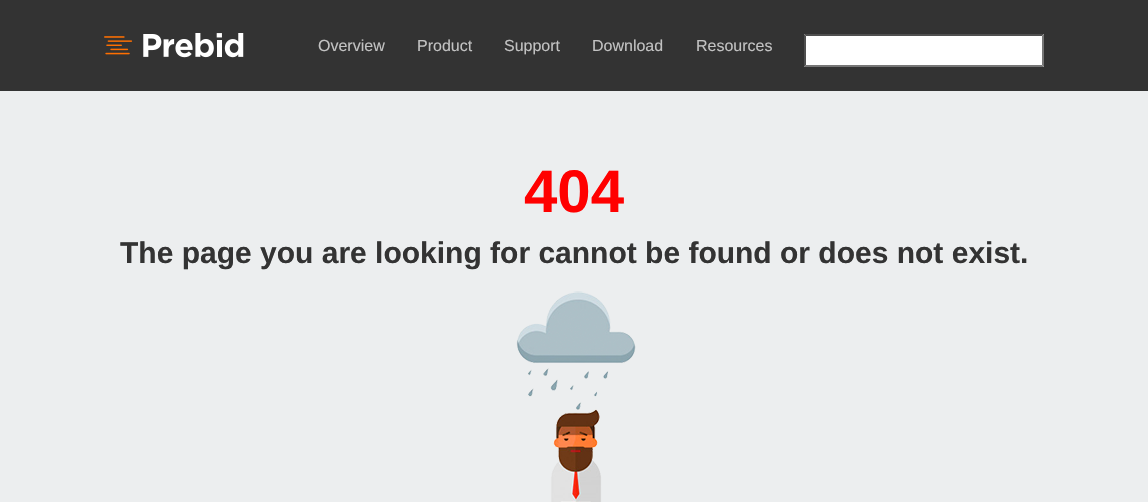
void draw(SkCanvas* c) {
SkPaint p;
p.setAntiAlias(true);
auto F=[&](const char* family, int weight, float size, bool italic = false){SkFontStyle style(weight, SkFontStyle::kNormal_Width,italic ? SkFontStyle::kItalic_Slant : SkFontStyle::kUpright_Slant);SkFont result(fontMgr->matchFamilyStyle(family, style), size);result.setSubpixel(true);return result;};
auto T=[&](const char* s, float x, float y, const SkFont& font){c->drawString(s, x, y, font, p);};
auto R=[&](float x, float y, float w, float h){c->drawRect(SkRect::MakeXYWH(x, y, w, h), p);};
auto I=[&](const char* path, float x, float y, float w, float h){auto image = SkImages::DeferredFromEncodedData(SkData::MakeFromFileName(path));c->drawImageRect(image, SkRect::MakeXYWH(x, y, w, h), SkSamplingOptions());};
auto P=[&](const char* data, bool evenOdd = false){SkPath result = *SkParsePath::FromSVGString(data);if (evenOdd) result.setFillType(SkPathFillType::kEvenOdd);return result;};
c->clear(0xffeceeef);
p.setColor(0xff333333);
R(0,0,1148,91);
I("1.png",104,33,140,25);
auto f1 = F("Liberation Sans",400,16);
p.setColor(0xffc2c2c2);
T("Overview",318,51,f1);
T("Product",417,51,f1);
T("Support",504,51,f1);
T("Download",592,51,f1);
T("Resources",696,51,f1);
p.setColor(0xffffffff);
R(804,34,240,33);
p.setColor(0xff4f4f4f);
c->drawPath(P("M804 34h240l-2 2h-236z"),p);
p.setColor(0xff767676);
c->drawPath(P("M1044 34v33l-2-2v-29z"),p);
c->drawPath(P("M1044 67h-240l2-2h236z"),p);
p.setColor(0xff4f4f4f);
c->drawPath(P("M804 67v-33l2 2v29z"),p);
auto f2 = F("Liberation Sans",700,60);
p.setColor(0xffff0000);
T("404",524,212,f2);
auto f3 = F("Liberation Sans",700,30);
p.setColor(0xff333333);
T("The page you are looking for cannot be found or does not exist.",120,263,f3);
I("2.png",516,291,120,211);
}
